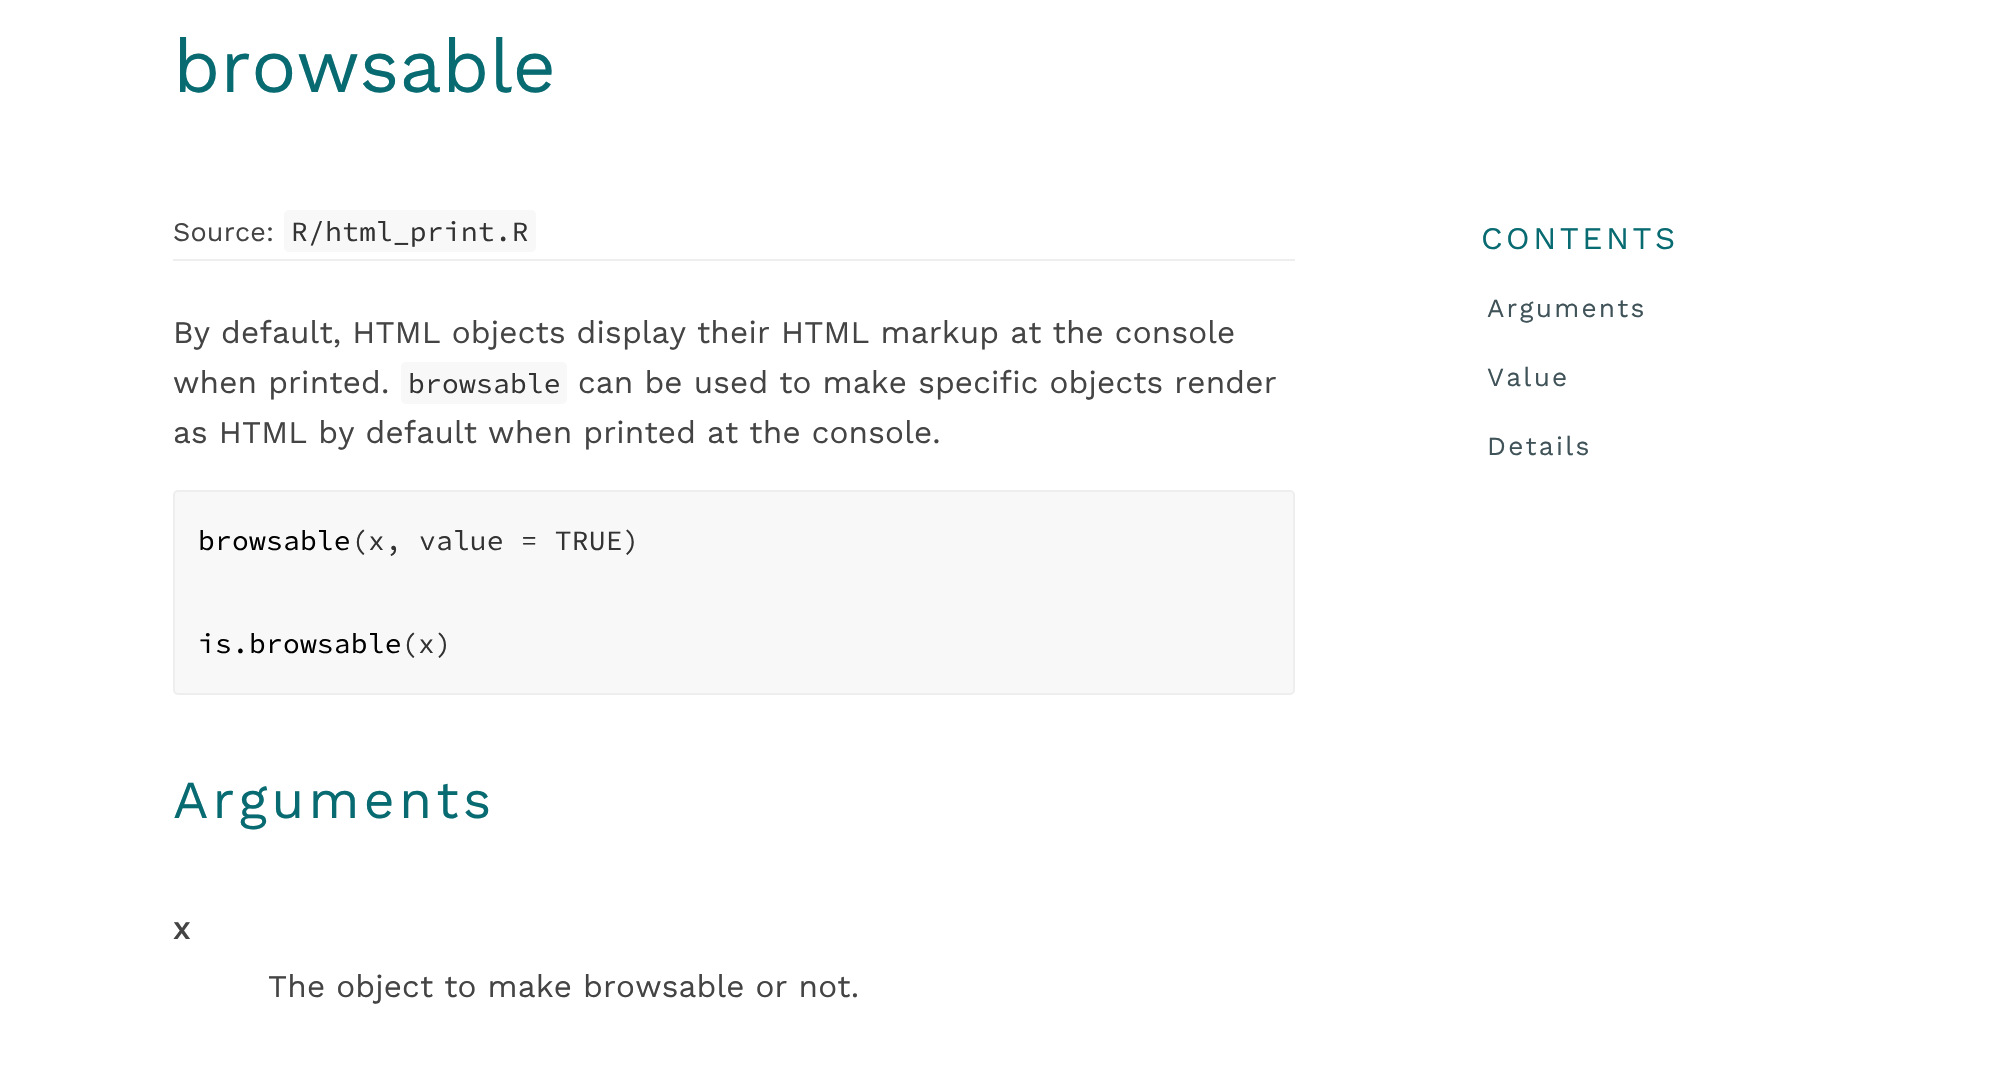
void draw(SkCanvas* c) {
SkPaint p;
p.setAntiAlias(true);
auto F=[&](const char* family, int weight, float size, bool italic = false){SkFontStyle style(weight, SkFontStyle::kNormal_Width,italic ? SkFontStyle::kItalic_Slant : SkFontStyle::kUpright_Slant);SkFont result(fontMgr->matchFamilyStyle(family, style), size);result.setSubpixel(true);return result;};
auto T=[&](const char* s, float x, float y, const SkFont& font){c->drawString(s, x, y, font, p);};
auto L=[&](const char* s, float x, float y, const SkFont& font, const SkPaint& ink, float letter, float word){std::vector<SkGlyphID> glyphs(font.countText(s, strlen(s), SkTextEncoding::kUTF8));std::vector<float> xs(glyphs.size());font.textToGlyphs(s, strlen(s), SkTextEncoding::kUTF8, glyphs);font.getXPos(glyphs, xs, x);float extra = 0;for (size_t i = 0; i < glyphs.size(); i++) {xs[i] += extra;extra += letter + word * (glyphs[i] == font.unicharToGlyph(' '));}c->drawTextBlob(SkTextBlob::MakeFromPosHGlyphs(glyphs, xs, y, font), 0, 0, ink);};
auto R=[&](float x, float y, float w, float h){c->drawRect(SkRect::MakeXYWH(x, y, w, h), p);};
auto Q=[&](float x, float y, float w, float h, float radius){c->drawRoundRect(SkRect::MakeXYWH(x, y, w, h), radius, radius, p);};
c->clear(0xffffffff);
p.setColor(0xffeeeeee);
R(173,259,1122,2);
auto f1 = F("Work Sans",400,75.5);
p.setColor(0xff096b72);
T("browsable",173,92,f1);
auto f2 = F("Work Sans",400,27);
p.setColor(0xff444444);
L("Source:",173,241,f2,p,.18,0);
p.setColor(0xfff8f8f8);
Q(284,210,252,42,5);
auto f3 = F("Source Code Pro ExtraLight",200,28);
p.setColor(0xff333333);
L("R/html_print.R",291,241,f3,p,.18,0);
auto f4 = F("Work Sans",400,31.5);
p.setColor(0xff444444);
L("By default, HTML objects display their HTML markup at the console",173,343,f4,p,.18,0);
L("when printed.",173,393,f4,p,.18,0);
p.setColor(0xfff8f8f8);
Q(401,362,166,42,5);
p.setColor(0xff333333);
L("browsable",408,393,f3,p,.18,0);
p.setColor(0xff444444);
L("can be used to make specific objects render",578,393,f4,p,.18,0);
L("as HTML by default when printed at the console.",173,443,f4,p,.18,0);
p.setColor(0xfff8f8f8);
c->drawRoundRect(SkRect::MakeXYWH(174,491,1120,203),4,4,p);
p.setStroke(true);
p.setStrokeWidth(2);
p.setColor(0xffeeeeee);
c->drawRoundRect(SkRect::MakeXYWH(174,491,1120,203),4,4,p);
p.setStroke(false);
p.setColor(0xff000000);
L("browsable",198,550,f3,p,.18,0);
p.setColor(0xff333333);
L("(x, value = TRUE)",351,550,f3,p,.18,0);
p.setColor(0xff000000);
L("is.browsable",198,653,f3,p,.18,0);
p.setColor(0xff333333);
L("(x)",401,653,f3,p,.18,0);
auto f5 = F("Work Sans",400,53.5);
p.setColor(0xff096b72);
L("Arguments",173,818,f5,p,4.25,0);
auto f6 = F("Work Sans",700,31.5);
p.setColor(0xff444444);
L("x",173,939,f6,p,.18,0);
L("The object to make browsable or not.",268,997,f4,p,.18,0);
p.setColor(0xff096b72);
L("CONTENTS",1481,249,f4,p,3.5,0);
auto f7 = F("Work Sans",400,26.25);
p.setColor(0xff405359);
L("Arguments",1487,317,f7,p,2.25,0);
L("Value",1487,386,f7,p,2.25,0);
L("Details",1487,455,f7,p,2.25,0);
}
